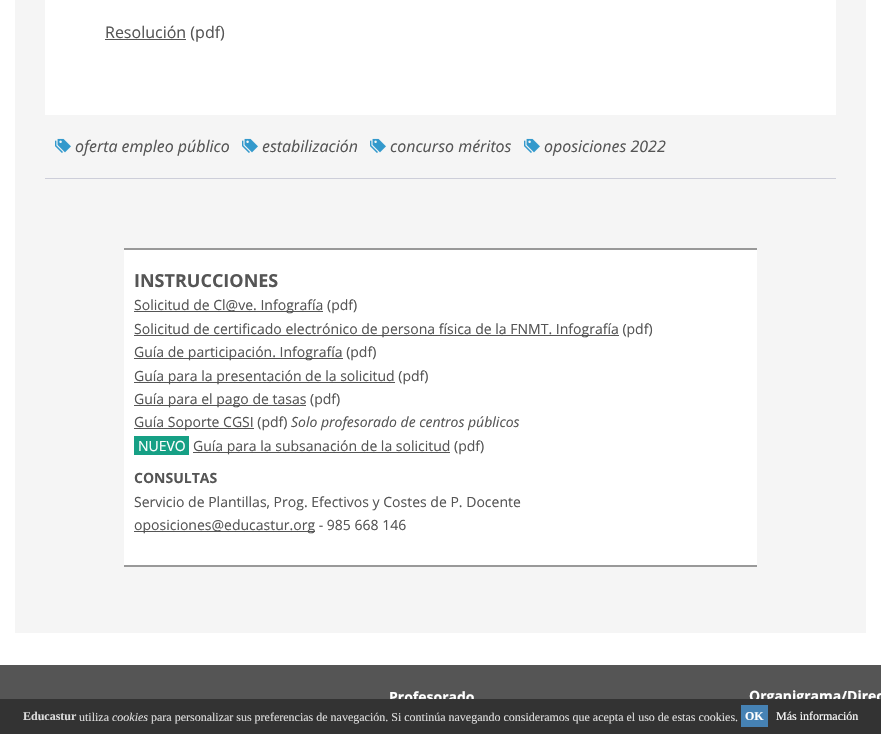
void draw(SkCanvas* c) {
SkPaint p;
p.setAntiAlias(true);
auto F=[&](const char* family, int weight, float size, bool italic = false){SkFontStyle style(weight, SkFontStyle::kNormal_Width,italic ? SkFontStyle::kItalic_Slant : SkFontStyle::kUpright_Slant);SkFont result(fontMgr->matchFamilyStyle(family, style), size);result.setSubpixel(true);return result;};
auto T=[&](const char* s, float x, float y, const SkFont& font){c->drawString(s, x, y, font, p);};
auto R=[&](float x, float y, float w, float h){c->drawRect(SkRect::MakeXYWH(x, y, w, h), p);};
auto I=[&](const char* path, float x, float y, float w, float h){auto image = SkImages::DeferredFromEncodedData(SkData::MakeFromFileName(path));c->drawImageRect(image, SkRect::MakeXYWH(x, y, w, h), SkSamplingOptions());};
c->clear(0xffffffff);
p.setColor(0xfff5f5f5);
R(15,0,851,633);
p.setColor(0xffffffff);
R(45,0,791,115);
p.setColor(0xff555555);
R(105,39,81,1);
auto f1 = F("Open Sans",400,16);
T("Resolución (pdf)",105,38,f1);
I("1.png",55,138,16,15);
auto f2 = F("Open Sans",400,16,true);
T("oferta empleo público",75,152,f2);
I("1.png",242,138,16,15);
T("estabilización",262,152,f2);
I("1.png",370,138,16,15);
T("concurso méritos",390,152,f2);
I("1.png",524,138,16,15);
T("oposiciones 2022",544,152,f2);
p.setColor(0xffcdced9);
R(45,178,791,1);
p.setColor(0xffffffff);
R(124,250,633,315);
p.setColor(0xff999999);
R(124,248,633,2);
R(124,565,633,2);
auto f3 = F("Open Sans",700,18);
p.setColor(0xff555555);
T("INSTRUCCIONES",134,287,f3);
R(134,311,189,1);
auto f4 = F("Open Sans",400,14);
T("Solicitud de Cl@ve. Infografía (pdf)",134,310,f4);
R(134,335,485,1);
T("Solicitud de certificado electrónico de persona física de la FNMT. Infografía (pdf)",134,334,f4);
R(134,358,209,1);
T("Guía de participación. Infografía (pdf)",134,357,f4);
R(134,382,261,1);
T("Guía para la presentación de la solicitud (pdf)",134,381,f4);
R(134,405,172,1);
T("Guía para el pago de tasas (pdf)",134,404,f4);
R(134,428,120,1);
T("Guía Soporte CGSI (pdf)",134,427,f4);
auto f5 = F("Open Sans",400,14,true);
T("Solo profesorado de centros públicos",291,427,f5);
p.setColor(0xff16a085);
R(134,436,55,19);
p.setColor(0xffffffff);
T("NUEVO",138,451,f4);
p.setColor(0xff555555);
R(193,452,257,1);
T("Guía para la subsanación de la solicitud (pdf)",193,451,f4);
auto f6 = F("Open Sans",700,14);
T("CONSULTAS",134,483,f6);
T("Servicio de Plantillas, Prog. Efectivos y Costes de P. Docente",134,507,f4);
R(134,531,181,1);
T("oposiciones@educastur.org - 985 668 146",134,530,f4);
R(0,665,881,34);
p.setColor(0xffffffff);
T("Profesorado",389,702,f6);
T("Organigrama/Direc",749,701,f6);
p.setColor(0xff333333);
R(0,699,881,35);
auto f7 = F("Liberation Serif",700,12);
p.setColor(0xffdddddd);
T("Educastur",23,720,f7);
auto f8 = F("Liberation Serif",400,12);
T("utiliza",79,721,f8);
auto f9 = F("Liberation Serif",400,12,true);
T("cookies",112,721,f9);
T("para personalizar sus preferencias de navegación. Si continúa navegando consideramos que acepta el uso de estas cookies.",151,721,f8);
p.setColor(0xff4682b4);
R(741,705,27,22);
p.setColor(0xffffffff);
T("OK",745,720,f7);
T("Más información",776,720,f8);
}
